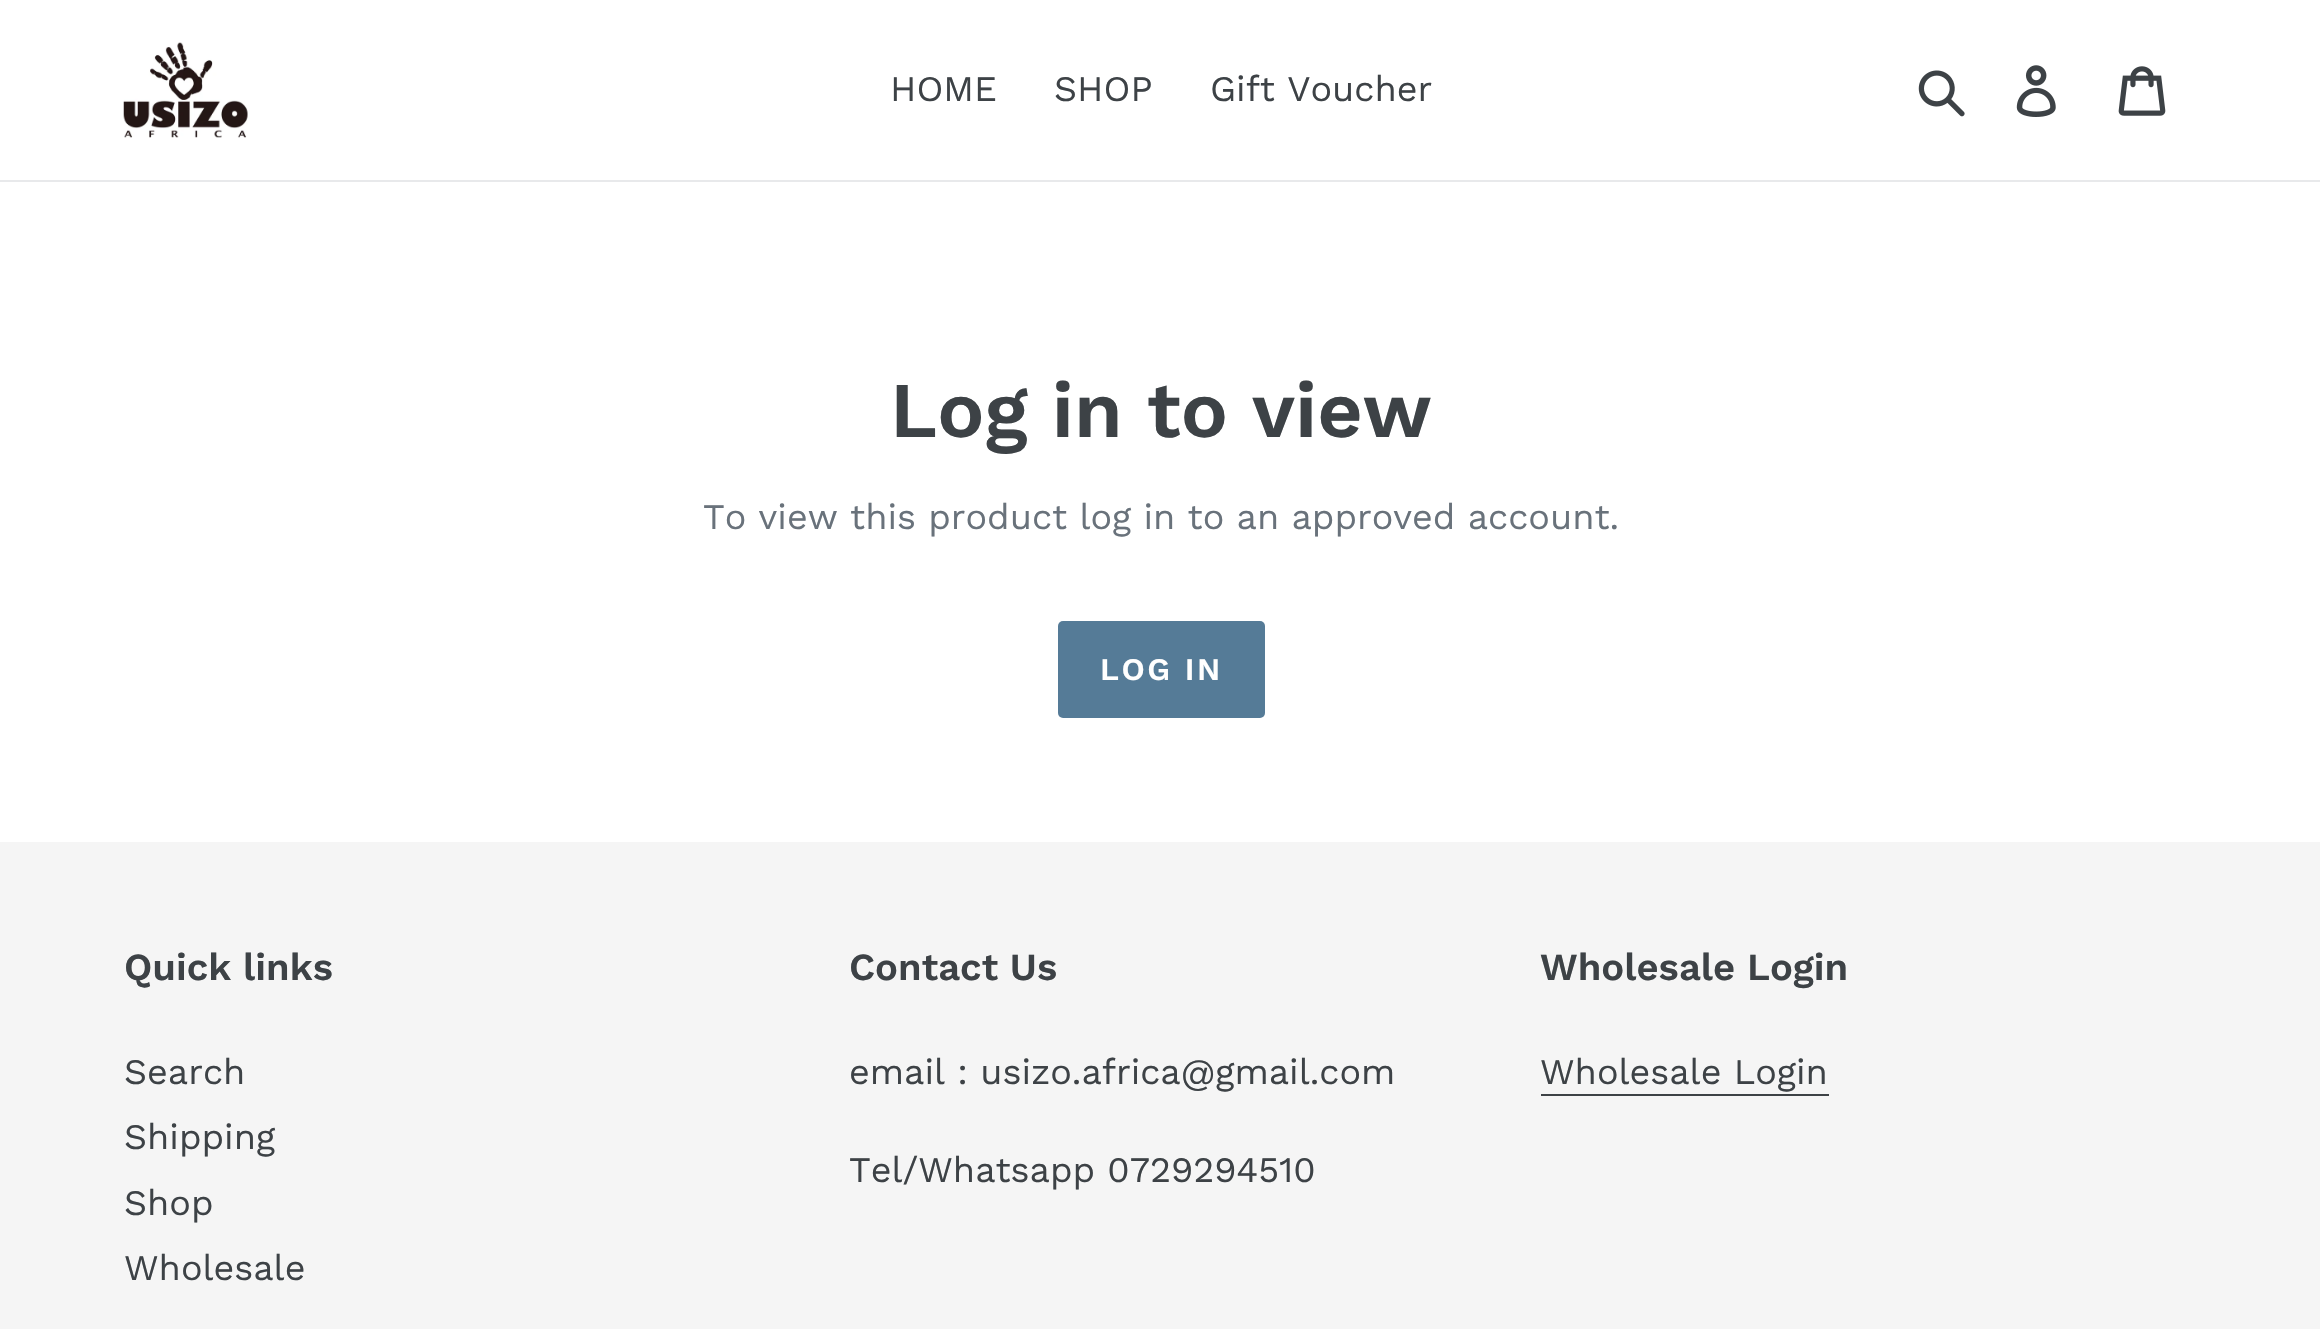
void draw(SkCanvas* c) {
SkPaint p;
p.setAntiAlias(true);
auto F=[&](const char* family, int weight, float size, bool italic = false){SkFontStyle style(weight, SkFontStyle::kNormal_Width,italic ? SkFontStyle::kItalic_Slant : SkFontStyle::kUpright_Slant);SkFont result(fontMgr->matchFamilyStyle(family, style), size);result.setSubpixel(true);return result;};
auto T=[&](const char* s, float x, float y, const SkFont& font){c->drawString(s, x, y, font, p);};
auto L=[&](const char* s, float x, float y, const SkFont& font, const SkPaint& ink, float letter, float word){std::vector<SkGlyphID> glyphs(font.countText(s, strlen(s), SkTextEncoding::kUTF8));std::vector<float> xs(glyphs.size());font.textToGlyphs(s, strlen(s), SkTextEncoding::kUTF8, glyphs);font.getXPos(glyphs, xs, x);float extra = 0;for (size_t i = 0; i < glyphs.size(); i++) {xs[i] += extra;extra += letter + word * (glyphs[i] == font.unicharToGlyph(' '));}c->drawTextBlob(SkTextBlob::MakeFromPosHGlyphs(glyphs, xs, y, font), 0, 0, ink);};
auto R=[&](float x, float y, float w, float h){c->drawRect(SkRect::MakeXYWH(x, y, w, h), p);};
auto Q=[&](float x, float y, float w, float h, float radius){c->drawRoundRect(SkRect::MakeXYWH(x, y, w, h), radius, radius, p);};
auto I=[&](const char* path, float x, float y, float w, float h){auto image = SkImages::DeferredFromEncodedData(SkData::MakeFromFileName(path));c->drawImageRect(image, SkRect::MakeXYWH(x, y, w, h), SkSamplingOptions());};
c->clear(0xffffffff);
p.setColor(0xffe8e9eb);
R(0,180,2320,2);
I("1.png",123,42,125,96);
auto f1 = F("Work Sans",400,36);
p.setColor(0xff3d4246);
T("HOME",890,101,f1);
T("SHOP",1054,101,f1);
T("Gift Voucher",1210,101,f1);
I("2.png",1918,70,47,47);
I("3.png",2016,65,40,52);
I("4.png",2118,66,48,50);
auto f2 = F("Work Sans",600,78.75);
T("Log in to view",890,437,f2);
p.setColor(0xff69727b);
T("To view this product log in to an approved account.",703,529,f1);
p.setColor(0xff557b97);
Q(1058,621,207,97,5);
auto f3 = F("Work Sans",600,31.5);
p.setColor(0xffffffff);
L("LOG IN",1100,680,f3,p,2.5,0);
p.setColor(0xfff5f5f5);
R(0,842,2320,487);
auto f4 = F("Work Sans",600,38.25);
p.setColor(0xff3d4246);
T("Quick links",124,980,f4);
T("Search",124,1084,f1);
T("Shipping",124,1149,f1);
T("Shop",124,1215,f1);
T("Wholesale",124,1280,f1);
T("Contact Us",849,980,f4);
T("email : usizo.africa@gmail.com",849,1084,f1);
T("Tel/Whatsapp 0729294510",849,1182,f1);
T("Wholesale Login",1540,980,f4);
T("Wholesale Login",1540,1084,f1);
R(1541,1094,288,2);
}
